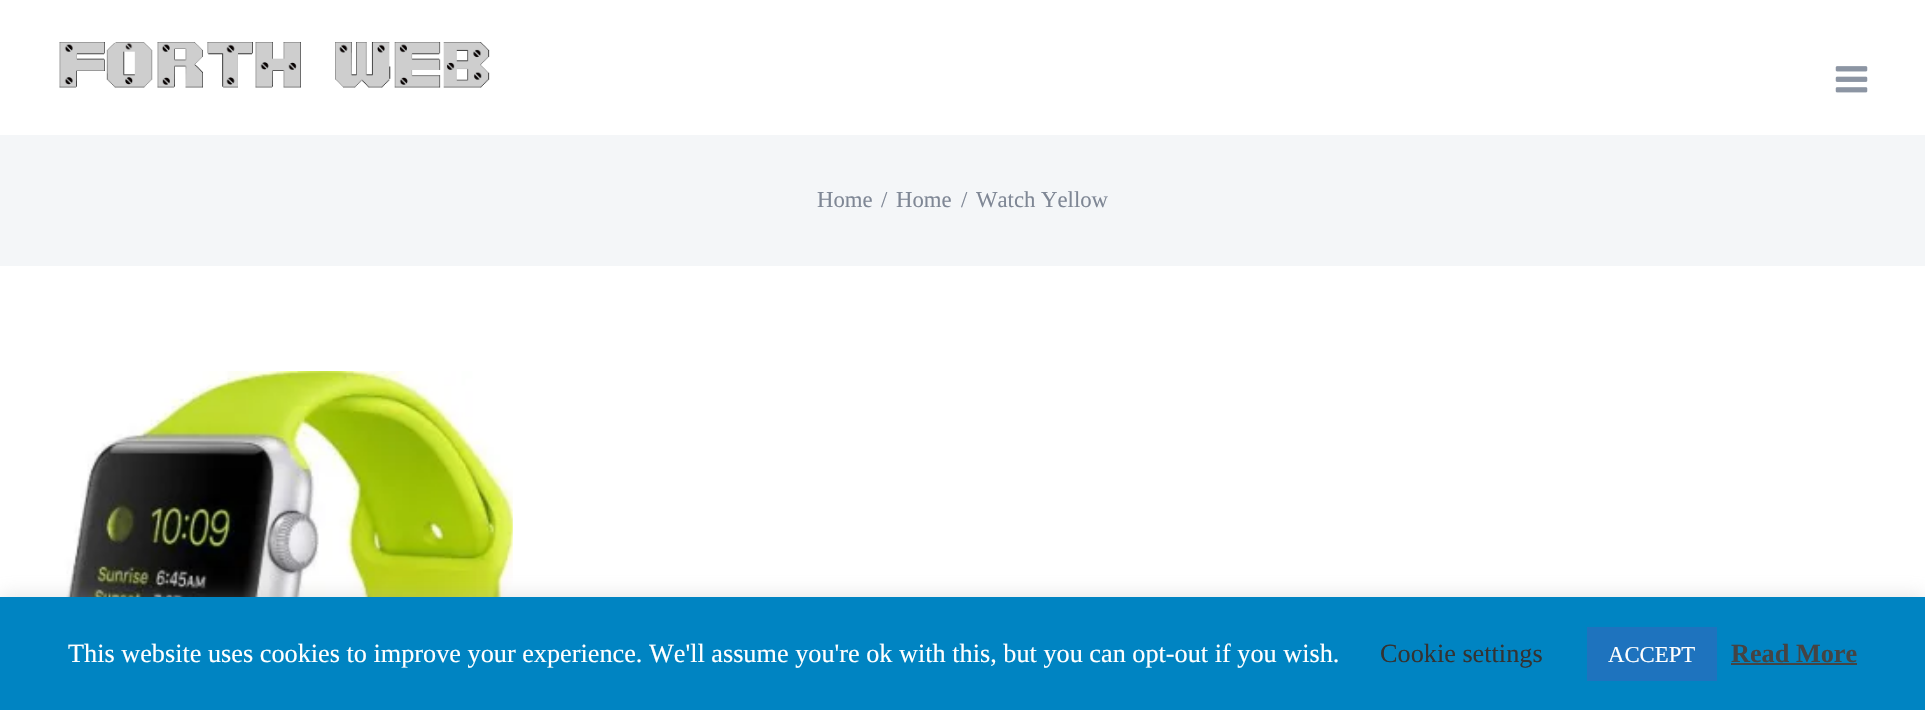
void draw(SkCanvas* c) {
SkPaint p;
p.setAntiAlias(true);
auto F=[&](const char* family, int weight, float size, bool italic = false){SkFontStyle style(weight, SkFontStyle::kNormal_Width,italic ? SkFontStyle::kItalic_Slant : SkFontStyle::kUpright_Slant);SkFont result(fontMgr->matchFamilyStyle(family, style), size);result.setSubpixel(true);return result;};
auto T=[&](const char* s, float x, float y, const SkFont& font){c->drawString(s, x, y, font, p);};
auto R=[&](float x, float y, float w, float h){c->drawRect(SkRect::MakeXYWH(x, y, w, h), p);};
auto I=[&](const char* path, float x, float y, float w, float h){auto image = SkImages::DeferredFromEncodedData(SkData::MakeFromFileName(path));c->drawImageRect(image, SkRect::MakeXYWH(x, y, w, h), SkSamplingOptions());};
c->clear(0xffffffff);
I("1.png",59,42,431,46);
I("2.png",1835,66,33,27);
p.setColor(0xfff4f6f8);
R(0,135,1925,131);
auto f1 = F("Liberation Serif",400,22.75);
p.setColor(0xff7f8795);
T("Home",817,207,f1);
T("/",881,207,f1);
T("Home",896,207,f1);
T("/",961,207,f1);
T("Watch Yellow",976,207,f1);
I("3.png",52,371,461,226);
p.setColor(0x4dacabab);
p.setMaskFilter(SkMaskFilter::MakeBlur(kNormal_SkBlurStyle, 9));
c->drawRect(SkRect::MakeXYWH(0,595,1925,114),p);
p.setMaskFilter(nullptr);
p.setColor(0xff0084c2);
R(0,597,1925,113);
auto f2 = F("Liberation Serif",400,26.25);
p.setColor(0xffffffff);
T("This website uses cookies to improve your experience. We'll assume you're ok with this, but you can opt-out if you wish.",68,662,f2);
p.setColor(0xff333333);
T("Cookie settings",1380,662,f2);
p.setColor(0xff1e73be);
R(1587,627,130,54);
p.setColor(0xffffffff);
T("ACCEPT",1608,662,f1);
auto f3 = F("Liberation Serif",700,26.25);
p.setColor(0xff444444);
T("Read More",1731,662,f3);
R(1731,663,126,2);
}
